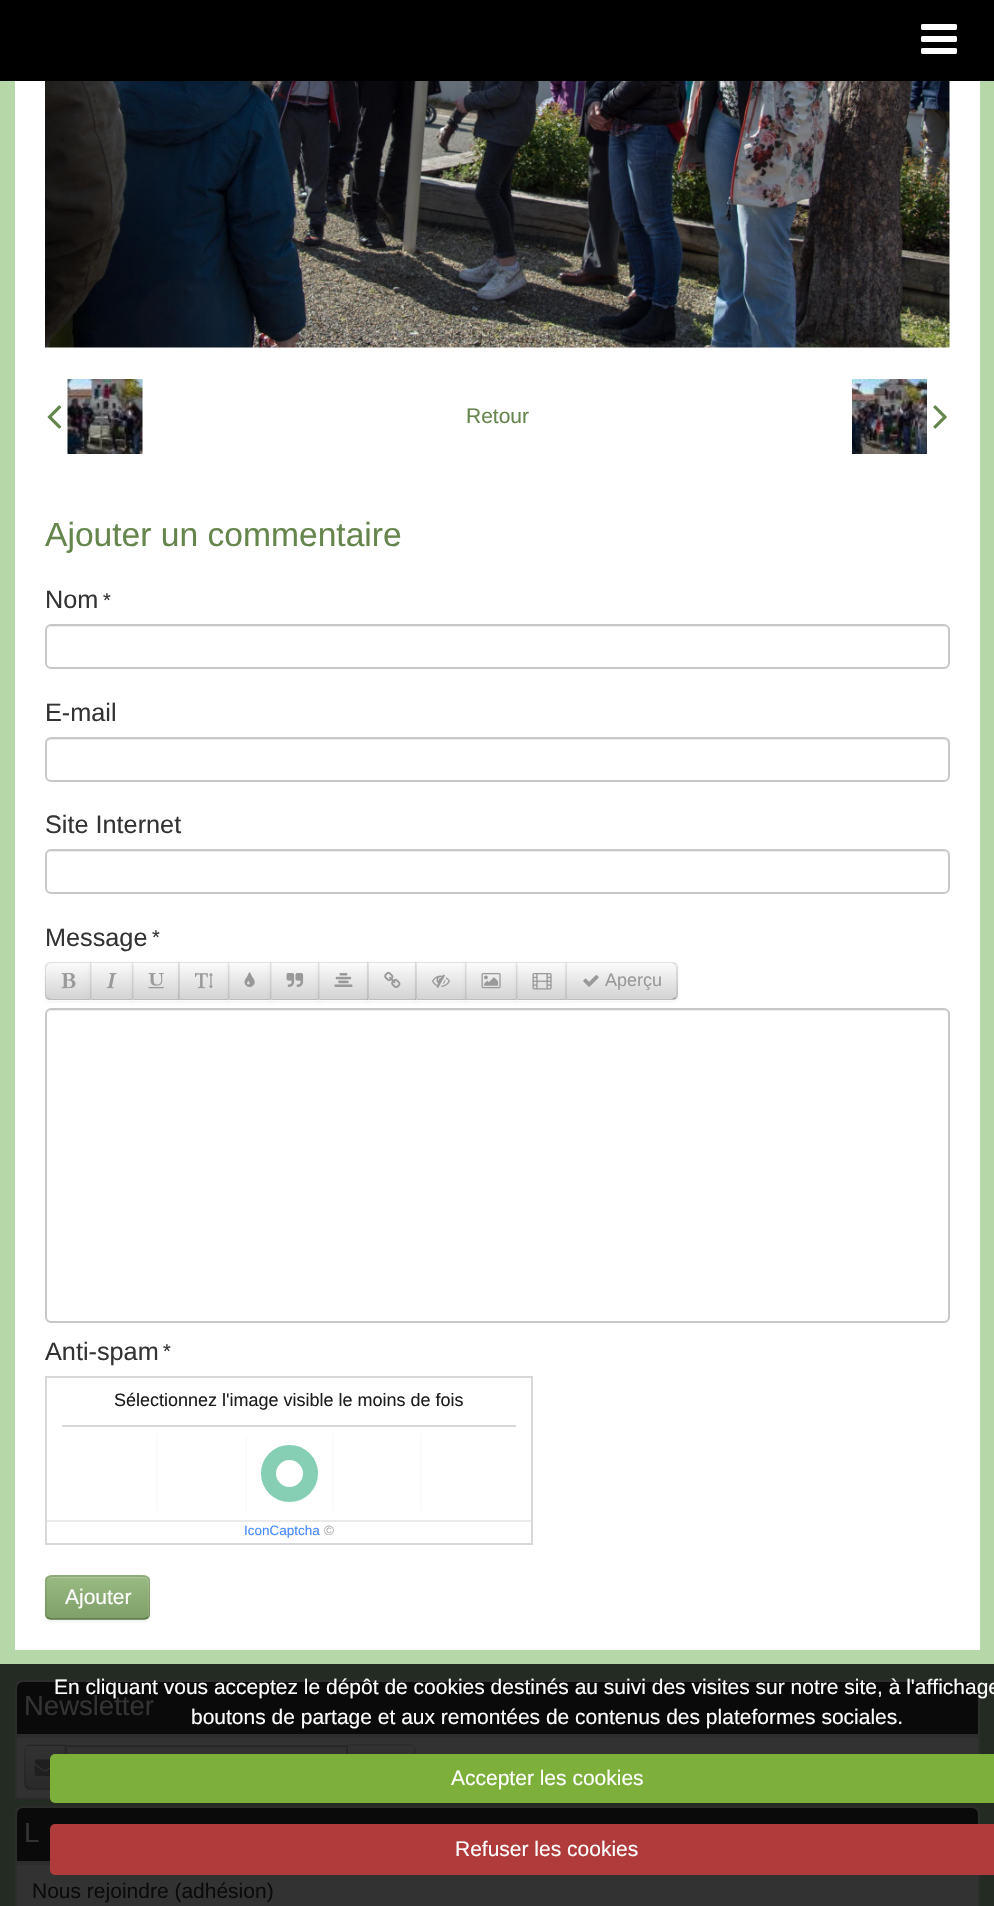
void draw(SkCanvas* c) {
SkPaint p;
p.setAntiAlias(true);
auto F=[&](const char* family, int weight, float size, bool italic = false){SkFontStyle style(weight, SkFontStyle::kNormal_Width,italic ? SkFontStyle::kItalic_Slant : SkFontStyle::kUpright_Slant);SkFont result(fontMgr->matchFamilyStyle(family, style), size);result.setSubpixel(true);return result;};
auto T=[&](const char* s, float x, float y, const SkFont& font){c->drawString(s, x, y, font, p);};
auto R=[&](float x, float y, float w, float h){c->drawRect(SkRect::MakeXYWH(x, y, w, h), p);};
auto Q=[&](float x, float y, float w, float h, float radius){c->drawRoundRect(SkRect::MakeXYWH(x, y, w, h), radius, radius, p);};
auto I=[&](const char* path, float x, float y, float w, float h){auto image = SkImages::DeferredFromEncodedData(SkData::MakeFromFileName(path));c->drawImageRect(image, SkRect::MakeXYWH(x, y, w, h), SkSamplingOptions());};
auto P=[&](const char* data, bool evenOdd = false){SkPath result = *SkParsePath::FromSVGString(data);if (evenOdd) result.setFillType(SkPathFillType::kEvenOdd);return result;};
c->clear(0xffb6d7a8);
p.setColor(0xff242b22);
R(0,1664,994,242);
p.setColor(0xff000000);
R(0,0,994,81);
I("1.png",921,24,36,30);
p.setColor(0xffffffff);
R(15,81,965,1569);
I("2.png",45,81,905,267);
I("3.png",47,405,15,24);
I("4.png",67,379,76,75);
auto f1 = F("Liberation Sans",400,21);
p.setColor(0xff64854c);
T("Retour",466,423,f1);
I("5.png",852,379,75,75);
I("6.png",933,405,14,24);
auto f2 = F("Liberation Sans",400,33.6);
T("Ajouter un commentaire",45,546,f2);
auto f3 = F("Liberation Sans",400,25.25);
p.setColor(0xff333333);
T("Nom",45,608,f3);
auto f4 = F("Liberation Sans",400,20);
T("*",103,607,f4);
p.setColor(0xffececec);
c->drawPath(P("M51 627h893c2 0 4 2 4 5c0-3-1-5-4-6h-892l-3 1l-1 1z"),p);
p.setStroke(true);
p.setStrokeWidth(2);
p.setColor(0xffc8c8c8);
c->drawRoundRect(SkRect::MakeXYWH(46,625,903,43),5,5,p);
p.setStroke(false);
p.setColor(0xff333333);
T("E-mail",45,721,f3);
p.setColor(0xffececec);
c->drawPath(P("M51 740h893c2 0 4 2 4 4v-1c0-3-2-5-5-5h-891c-2 0-4 2-5 4c1-1 3-2 4-2z"),p);
p.setStroke(true);
p.setColor(0xffc8c8c8);
c->drawRoundRect(SkRect::MakeXYWH(46,738,903,43),5,5,p);
p.setStroke(false);
p.setColor(0xff333333);
T("Site Internet",45,833,f3);
p.setColor(0xffececec);
c->drawPath(P("M51 852h893c2 0 4 2 4 4c0-3-2-5-5-5h-891c-2 0-3 1-4 2z"),p);
p.setStroke(true);
p.setColor(0xffc8c8c8);
c->drawRoundRect(SkRect::MakeXYWH(46,850,903,43),5,5,p);
p.setStroke(false);
p.setColor(0xff333333);
T("Message",45,946,f3);
T("*",152,944,f4);
p.setColor(0x0d000000);
p.setMaskFilter(SkMaskFilter::MakeBlur(kNormal_SkBlurStyle, 1.5));
c->drawRoundRect(SkRect::MakeXYWH(45,963,47,39),6,6,p);
p.setMaskFilter(nullptr);
p.setColor(0xfffbfbfb);
c->drawPath(P("M51 962h41v39h-41c-3.5 0-6-2.5-6-6v-27c0-3.5 2.5-6 6-6z"),p);
c->save();
c->clipPath(P("M51 962h41v39h-41c-3.5 0-6-2.5-6-6v-27c0-3.5 2.5-6 6-6z"),true);
{
const SkColor colors[] = {0xfffbfbfb,0xffd3d3d3};
const float stops[] = {0,1};
const SkPoint ends[] = {{68,963}, {68,999}};
p.setShader(SkGradientShader::MakeLinear(ends, colors, stops, 2, SkTileMode::kClamp));
p.setAlpha(255);
}
R(45,963,45,36);
c->restore();
p.setShader(nullptr);
p.setColor(0x1a000000);
c->drawPath(P("M51 962c-1 0-3 0-4 1l1 1c1-1 2-1 3-1h39l1-1z"),p);
p.setColor(0x40000000);
c->drawPath(P("M91 1000h-40c-1 0-3 0-4-1l1-1c1 1 2 1 3 1h39z"),p);
p.setColor(0x1a000000);
c->drawPath(P("M45 968v26c0 2 1 3.5 2 4.5l1-1c-1-.5-2-2-2-3.5v-26c0-1.5 1-3 2-3.5l-1-1c-1 1-2 2.5-2 4.5z"),p);
I("7.png",61,973,15,16);
p.setColor(0x0d000000);
p.setMaskFilter(SkMaskFilter::MakeBlur(kNormal_SkBlurStyle, 1.5));
c->drawRect(SkRect::MakeXYWH(90,963,44,39),p);
p.setMaskFilter(nullptr);
p.setColor(0xfffbfbfb);
R(90,962,42,39);
{
const SkColor colors[] = {0xfffbfbfb,0xffd3d3d3};
const float stops[] = {0,1};
const SkPoint ends[] = {{112,963}, {112,999}};
p.setShader(SkGradientShader::MakeLinear(ends, colors, stops, 2, SkTileMode::kClamp));
p.setAlpha(255);
}
R(90,965,42,34);
p.setShader(nullptr);
p.setColor(0xffe2e2e2);
c->drawPath(P("M90 962h44l-2 1h-40z"),p);
p.setColor(0x40000000);
c->drawPath(P("M134 1000h-44l2-1h40z"),p);
p.setColor(0x1a000000);
c->drawPath(P("M90 1000.5v-39l1.5 1.5v36z"),p);
I("8.png",106,973,11,16);
p.setColor(0x0d000000);
p.setMaskFilter(SkMaskFilter::MakeBlur(kNormal_SkBlurStyle, 1.5));
c->drawRect(SkRect::MakeXYWH(132,963,48,39),p);
p.setMaskFilter(nullptr);
p.setColor(0xfffbfbfb);
R(132,962,47,39);
{
const SkColor colors[] = {0xfffbfbfb,0xffd3d3d3};
const float stops[] = {0,1};
const SkPoint ends[] = {{156,963}, {156,999}};
p.setShader(SkGradientShader::MakeLinear(ends, colors, stops, 2, SkTileMode::kClamp));
p.setAlpha(255);
}
R(132,965,47,34);
p.setShader(nullptr);
p.setColor(0xffe2e2e2);
c->drawPath(P("M132 962h48l-2 1h-44z"),p);
p.setColor(0x1a000000);
c->drawPath(P("M180 961.5v39l-1.5-1.5v-36z"),p);
p.setColor(0x40000000);
c->drawPath(P("M180 1000h-48l2-1h44z"),p);
p.setColor(0x1a000000);
c->drawPath(P("M132 1000.5v-39l1.5 1.5v36z"),p);
I("9.png",148,973,16,16);
p.setColor(0x0d000000);
p.setMaskFilter(SkMaskFilter::MakeBlur(kNormal_SkBlurStyle, 1.5));
c->drawRect(SkRect::MakeXYWH(179,963,51,39),p);
p.setMaskFilter(nullptr);
p.setColor(0xfffbfbfb);
R(179,962,49,39);
{
const SkColor colors[] = {0xfffbfbfb,0xffd3d3d3};
const float stops[] = {0,1};
const SkPoint ends[] = {{204,963}, {204,999}};
p.setShader(SkGradientShader::MakeLinear(ends, colors, stops, 2, SkTileMode::kClamp));
p.setAlpha(255);
}
R(179,965,49,34);
p.setShader(nullptr);
p.setColor(0xffe2e2e2);
c->drawPath(P("M178 962h52l-2 1h-48z"),p);
p.setColor(0x40000000);
c->drawPath(P("M230 1000h-52l2-1h48z"),p);
p.setColor(0x1a000000);
c->drawPath(P("M178.5 1000.5v-39l1.5 1.5v36z"),p);
I("10.png",195,973,18,16);
p.setColor(0x0d000000);
p.setMaskFilter(SkMaskFilter::MakeBlur(kNormal_SkBlurStyle, 1.5));
c->drawRect(SkRect::MakeXYWH(228,963,44,39),p);
p.setMaskFilter(nullptr);
p.setColor(0xfffbfbfb);
R(228,962,42,39);
{
const SkColor colors[] = {0xfffbfbfb,0xffd3d3d3};
const float stops[] = {0,1};
const SkPoint ends[] = {{250,963}, {250,999}};
p.setShader(SkGradientShader::MakeLinear(ends, colors, stops, 2, SkTileMode::kClamp));
p.setAlpha(255);
}
R(228,965,42,34);
p.setShader(nullptr);
p.setColor(0xffe2e2e2);
c->drawPath(P("M228 962h44l-2 1h-40z"),p);
p.setColor(0x40000000);
c->drawPath(P("M272 1000h-44l2-1h40z"),p);
p.setColor(0x1a000000);
c->drawPath(P("M228 1000.5v-39l1.5 1.5v36z"),p);
I("11.png",244,972,11,15);
p.setColor(0x0d000000);
p.setMaskFilter(SkMaskFilter::MakeBlur(kNormal_SkBlurStyle, 1.5));
c->drawRect(SkRect::MakeXYWH(270,963,50,39),p);
p.setMaskFilter(nullptr);
p.setColor(0xfffbfbfb);
R(270,962,48,39);
{
const SkColor colors[] = {0xfffbfbfb,0xffd3d3d3};
const float stops[] = {0,1};
const SkPoint ends[] = {{295,963}, {295,999}};
p.setShader(SkGradientShader::MakeLinear(ends, colors, stops, 2, SkTileMode::kClamp));
p.setAlpha(255);
}
R(270,965,48,34);
p.setShader(nullptr);
p.setColor(0xffe2e2e2);
c->drawPath(P("M270 962h50l-2 1h-46z"),p);
p.setColor(0x40000000);
c->drawPath(P("M320 1000h-50l2-1h46z"),p);
p.setColor(0x1a000000);
c->drawPath(P("M270 1000.5v-39l1.5 1.5v36z"),p);
I("12.png",286,973,18,14);
p.setColor(0x0d000000);
p.setMaskFilter(SkMaskFilter::MakeBlur(kNormal_SkBlurStyle, 1.5));
c->drawRect(SkRect::MakeXYWH(318,963,51,39),p);
p.setMaskFilter(nullptr);
p.setColor(0xfffbfbfb);
R(318,962,50,39);
{
const SkColor colors[] = {0xfffbfbfb,0xffd3d3d3};
const float stops[] = {0,1};
const SkPoint ends[] = {{344,963}, {344,999}};
p.setShader(SkGradientShader::MakeLinear(ends, colors, stops, 2, SkTileMode::kClamp));
p.setAlpha(255);
}
R(318,965,50,34);
p.setShader(nullptr);
p.setColor(0xffe2e2e2);
c->drawPath(P("M318 962h51l-1 1h-48z"),p);
p.setColor(0x1a000000);
c->drawPath(P("M369 961.5v39l-1.5-1.5v-36z"),p);
p.setColor(0x40000000);
c->drawPath(P("M369 1000h-51l2-1h48z"),p);
p.setColor(0x1a000000);
c->drawPath(P("M318 1000.5v-39l1.5 1.5v36z"),p);
I("13.png",334,973,19,14);
p.setColor(0x0d000000);
p.setMaskFilter(SkMaskFilter::MakeBlur(kNormal_SkBlurStyle, 1.5));
c->drawRect(SkRect::MakeXYWH(368,963,49,39),p);
p.setMaskFilter(nullptr);
p.setColor(0xfffbfbfb);
R(368,962,48,39);
{
const SkColor colors[] = {0xfffbfbfb,0xffd3d3d3};
const float stops[] = {0,1};
const SkPoint ends[] = {{392,963}, {392,999}};
p.setShader(SkGradientShader::MakeLinear(ends, colors, stops, 2, SkTileMode::kClamp));
p.setAlpha(255);
}
R(368,965,48,34);
p.setShader(nullptr);
p.setColor(0xffe2e2e2);
c->drawPath(P("M368 962h49l-1 1h-47z"),p);
p.setColor(0x1a000000);
c->drawPath(P("M417 961.5v39l-1.5-1.5v-36z"),p);
p.setColor(0x40000000);
c->drawPath(P("M417 1000h-49l1-1h47z"),p);
p.setColor(0x1a000000);
c->drawPath(P("M367.5 1000.5v-39l1.5 1.5v36z"),p);
I("14.png",384,971,17,17);
p.setColor(0x0d000000);
p.setMaskFilter(SkMaskFilter::MakeBlur(kNormal_SkBlurStyle, 1.5));
c->drawRect(SkRect::MakeXYWH(416,963,51,39),p);
p.setMaskFilter(nullptr);
p.setColor(0xfffbfbfb);
R(416,962,49,39);
{
const SkColor colors[] = {0xfffbfbfb,0xffd3d3d3};
const float stops[] = {0,1};
const SkPoint ends[] = {{441,963}, {441,999}};
p.setShader(SkGradientShader::MakeLinear(ends, colors, stops, 2, SkTileMode::kClamp));
p.setAlpha(255);
}
R(416,965,49,34);
p.setShader(nullptr);
p.setColor(0xffe2e2e2);
c->drawPath(P("M416 962h50l-1 1h-48z"),p);
p.setColor(0x40000000);
c->drawPath(P("M466 1000h-50l1-1h48z"),p);
p.setColor(0x1a000000);
c->drawPath(P("M415.5 1000.5v-39l1.5 1.5v36z"),p);
I("15.png",432,974,18,14);
p.setColor(0x0d000000);
p.setMaskFilter(SkMaskFilter::MakeBlur(kNormal_SkBlurStyle, 1.5));
c->drawRect(SkRect::MakeXYWH(465,963,53,39),p);
p.setMaskFilter(nullptr);
p.setColor(0xfffbfbfb);
R(465,962,51,39);
{
const SkColor colors[] = {0xfffbfbfb,0xffd3d3d3};
const float stops[] = {0,1};
const SkPoint ends[] = {{491,963}, {491,999}};
p.setShader(SkGradientShader::MakeLinear(ends, colors, stops, 2, SkTileMode::kClamp));
p.setAlpha(255);
}
R(465,965,51,34);
p.setShader(nullptr);
p.setColor(0xffe2e2e2);
c->drawPath(P("M465 962h53l-2 1h-50z"),p);
p.setColor(0x40000000);
c->drawPath(P("M518 1000h-53l1-1h50z"),p);
p.setColor(0x1a000000);
c->drawPath(P("M465 1000.5v-39l1.5 1.5v36z"),p);
I("16.png",481,973,20,16);
p.setColor(0x0d000000);
p.setMaskFilter(SkMaskFilter::MakeBlur(kNormal_SkBlurStyle, 1.5));
c->drawRect(SkRect::MakeXYWH(516,963,51,39),p);
p.setMaskFilter(nullptr);
p.setColor(0xfffbfbfb);
R(516,962,50,39);
{
const SkColor colors[] = {0xfffbfbfb,0xffd3d3d3};
const float stops[] = {0,1};
const SkPoint ends[] = {{542,963}, {542,999}};
p.setShader(SkGradientShader::MakeLinear(ends, colors, stops, 2, SkTileMode::kClamp));
p.setAlpha(255);
}
R(516,965,50,34);
p.setShader(nullptr);
p.setColor(0xffe2e2e2);
c->drawPath(P("M516 962h51l-1 1h-48z"),p);
p.setColor(0x1a000000);
c->drawPath(P("M567 961.5v39l-1.5-1.5v-36z"),p);
p.setColor(0x40000000);
c->drawPath(P("M567 1000h-51l2-1h48z"),p);
p.setColor(0x1a000000);
c->drawPath(P("M516 1000.5v-39l1.5 1.5v36z"),p);
I("17.png",532,973,20,17);
p.setColor(0x0d000000);
p.setMaskFilter(SkMaskFilter::MakeBlur(kNormal_SkBlurStyle, 1.5));
c->drawRoundRect(SkRect::MakeXYWH(566,963,112,39),6,6,p);
p.setMaskFilter(nullptr);
p.setColor(0xfffbfbfb);
c->drawPath(P("M566 962h106c3.5 0 6 2.5 6 6v27c0 3.5-2.5 6-6 6h-106z"),p);
c->save();
c->clipPath(P("M566 962h106c3.5 0 6 2.5 6 6v27c0 3.5-2.5 6-6 6h-106z"),true);
{
const SkColor colors[] = {0xfffbfbfb,0xffd3d3d3};
const float stops[] = {0,1};
const SkPoint ends[] = {{622,963}, {622,999}};
p.setShader(SkGradientShader::MakeLinear(ends, colors, stops, 2, SkTileMode::kClamp));
p.setAlpha(255);
}
R(566,963,112,36);
c->restore();
p.setShader(nullptr);
p.setColor(0x33ffffff);
c->drawPath(P("M567 964h87c22 0 22-4 22 14v19c1-1 1-2 1-3v-26c0-3-2-5-5-5h-105z"),p);
p.setColor(0x1a000000);
c->drawPath(P("M566 962l1 1h105l3 2l1-2c-1-1-3-1-4-1z"),p);
c->drawPath(P("M676 963.5c1 1 2 2.5 2 4.5v26c0 2-1 3.5-2 4.5l-1-1c.5-1 1-2 1-3.5v-26c0-1.5-.5-2.5-1-3.5z"),p);
p.setColor(0x40000000);
c->drawPath(P("M676 999c-1 1-3 1-4 1h-106l1-1h105l3-2z"),p);
p.setColor(0x1a000000);
c->drawPath(P("M567 963l-1-1v38l1-1z"),p);
I("18.png",583,975,16,12);
auto f5 = F("Liberation Sans",400,18);
p.setColor(0xff999999);
T("Aperçu",605,986,f5);
p.setColor(0xffececec);
c->drawPath(P("M51 1011h893c2 0 4 2 4 5c0-3-1-5-4-6h-892l-3 1l-1 1z"),p);
p.setStroke(true);
p.setColor(0xffc8c8c8);
c->drawRoundRect(SkRect::MakeXYWH(46,1009,903,313),5,5,p);
p.setStroke(false);
p.setColor(0xff333333);
T("Anti-spam",45,1360,f3);
T("*",163,1358,f4);
p.setStroke(true);
p.setColor(0xffd8d8d8);
c->drawRect(SkRect::MakeXYWH(46,1377,486,167),p);
p.setStroke(false);
R(62,1425,454,2);
p.setColor(0xff1d1d1d);
T("Sélectionnez l'image visible le moins de fois",114,1406,f5);
p.setColor(0xfffbfbfb);
R(156,1436,2,75);
R(245,1436,2,75);
p.setStroke(true);
p.setStrokeWidth(15);
p.setColor(0xff86cfb5);
c->drawCircle(289.5,1473.5,21,p);
p.setStroke(false);
p.setColor(0xfffbfbfb);
R(332,1436,2,75);
R(420,1436,2,75);
p.setColor(0xffeaeaea);
R(47,1520,484,2);
auto f6 = F("Liberation Sans",400,13.5);
p.setColor(0xff448aff);
T("IconCaptcha",244,1535,f6);
p.setColor(0xffa7a7a7);
T("©",324,1535,f6);
p.setColor(0x0d000000);
p.setMaskFilter(SkMaskFilter::MakeBlur(kNormal_SkBlurStyle, 1.5));
c->drawRoundRect(SkRect::MakeXYWH(45,1577,105,45),6,6,p);
p.setMaskFilter(nullptr);
p.setColor(0xff9aba83);
Q(45,1575,105,45,6);
c->save();
c->clipPath(P("M51 1575h93c3.5 0 6 2.5 6 6v33c0 3.5-2.5 6-6 6h-93c-3.5 0-6-2.5-6-6v-33c0-3.5 2.5-6 6-6z"),true);
{
const SkColor colors[] = {0xff9aba83,0xff7f9f68};
const float stops[] = {0,1};
const SkPoint ends[] = {{98,1577}, {98,1619}};
p.setShader(SkGradientShader::MakeLinear(ends, colors, stops, 2, SkTileMode::kClamp));
p.setAlpha(255);
}
R(45,1577,105,42);
c->restore();
p.setShader(nullptr);
p.setColor(0x33ffffff);
c->drawPath(P("M51 1578h93c5 0 4 7 4 10v29c1-1 1-2 1-3v-32c0-3-2-5-5-5h-92c-2 0-3 1-4 2z"),p);
p.setStroke(true);
p.setStrokeWidth(1.5);
p.setColor(0x40000000);
c->drawPath(P("M147.5 1617.5l-3 1.5h-94l-3-1.5"),p);
p.setColor(0x1a000000);
c->drawPath(P("M47.5 1617.5c-2.5-2-1.5-6-1.5-9v-11c0-24-4-21.5 20.5-21.5h62c24.5 0 20.5-2.5 20.5 21.5v11c0 3 1 7-1.5 9"),p);
p.setStroke(false);
p.setColor(0xffffffff);
T("Ajouter",65,1604,f1);
p.setColor(0xff0a0a0a);
c->drawPath(P("M23 1681h949c4 0 7 3 7 7v47h-963v-47c0-4 3-7 7-7z"),p);
p.setStroke(true);
p.setStrokeWidth(2);
p.setColor(0xff2d2d2d);
c->drawPath(P("M23 1681h949c4 0 7 3 7 7v47h-963v-47c0-4 3-7 7-7z"),p);
auto f7 = F("Liberation Sans",400,27.5);
p.setStroke(false);
p.setColor(0xff333333);
T("Newsletter",24,1715,f7);
p.setColor(0xff323232);
c->drawRect(SkRect::MakeXYWH(16,1737,963,61),p);
p.setStroke(true);
p.setColor(0xff2d2d2d);
c->drawRect(SkRect::MakeXYWH(16,1737,963,61),p);
c->save();
c->clipPath(P("M30 1745h36v45h-36c-3.5 0-6-2.5-6-6v-33c0-3.5 2.5-6 6-6z"),true);
p.setStroke(false);
{
const SkColor colors[] = {0xff323232,0xff2a2a2a};
const float stops[] = {0,1};
const SkPoint ends[] = {{45,1704}, {45,1746}};
p.setShader(SkGradientShader::MakeLinear(ends, colors, stops, 2, SkTileMode::kClamp));
p.setAlpha(255);
}
R(24,1745,42,1);
{
const SkColor colors[] = {0xff323232,0xff2a2a2a};
const float stops[] = {0,1};
const SkPoint ends[] = {{45,1746}, {45,1788}};
p.setShader(SkGradientShader::MakeLinear(ends, colors, stops, 2, SkTileMode::kClamp));
p.setAlpha(255);
}
R(24,1746,41,42);
c->restore();
p.setShader(nullptr);
p.setColor(0x1a000000);
c->drawPath(P("M30 1746c-1 0-2 1-3 2l-1-2l2-2h38l-2 2z"),p);
c->drawPath(P("M66 1744l-2 2v42l2 2z"),p);
p.setColor(0x40000000);
c->drawPath(P("M66 1790h-38l-2-2l1-2c1 1 2 2 3 2h34z"),p);
p.setColor(0x1a000000);
c->drawPath(P("M24 1750v34c0 1 1 3 2 4l1-2l-1-2v-34l1-2l-1-2c-1 1-2 3-2 4z"),p);
I("19.png",34,1759,16,17);
c->save();
c->clipPath(P("M347 1745h63c3.5 0 6 2.5 6 6v33c0 3.5-2.5 6-6 6h-63z"),true);
{
const SkColor colors[] = {0xff323232,0xff2a2a2a};
const float stops[] = {0,1};
const SkPoint ends[] = {{381,1746}, {381,1788}};
p.setShader(SkGradientShader::MakeLinear(ends, colors, stops, 2, SkTileMode::kClamp));
p.setAlpha(255);
}
R(348,1746,68,8);
c->restore();
p.setShader(nullptr);
p.setColor(0xff2d2d2d);
c->drawPath(P("M348 1746l-2-2h66l2 2l-1 1l-3-1z"),p);
p.setColor(0x1a000000);
c->drawPath(P("M346 1790l2-2v-42l-2-2z"),p);
p.setColor(0xff2f2f2f);
R(66,1747,281,1);
p.setStroke(true);
p.setColor(0xff282828);
c->drawRect(SkRect::MakeXYWH(66,1746,281,43),p);
p.setStroke(false);
p.setColor(0x1a000000);
c->drawPath(P("M416 1786l-2 2l-1-1c1-1 1-2 1-3v-34c0-1 0-2-1-3l1-1l2 2z"),p);
p.setColor(0xff0a0a0a);
c->drawPath(P("M23 1807h949c4 0 7 3 7 7v48h-963v-48c0-4 3-7 7-7z"),p);
p.setStroke(true);
p.setColor(0xff2d2d2d);
c->drawPath(P("M23 1807h949c4 0 7 3 7 7v48h-963v-48c0-4 3-7 7-7z"),p);
p.setStroke(false);
p.setColor(0xff333333);
T("L",24,1842,f7);
p.setColor(0xff323232);
c->drawRect(SkRect::MakeXYWH(16,1864,963,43),p);
p.setStroke(true);
p.setColor(0xff2d2d2d);
c->drawRect(SkRect::MakeXYWH(16,1864,963,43),p);
p.setStroke(false);
p.setColor(0xff0a0a0a);
T("Nous rejoindre (adhésion)",32,1898,f1);
p.setColor(0xffffffff);
T("En cliquant vous acceptez le dépôt de cookies destinés au suivi des visites sur notre site, à l'affichage",54,1694,f1);
T("boutons de partage et aux remontées de contenus des plateformes sociales.",191,1724,f1);
p.setColor(0xff7daf3b);
Q(50,1754,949,49,5);
p.setColor(0xffffffff);
T("Accepter les cookies",451,1785,f1);
p.setColor(0xffaf3b3b);
Q(50,1824,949,51,5);
p.setColor(0xffffffff);
T("Refuser les cookies",455,1856,f1);
}
